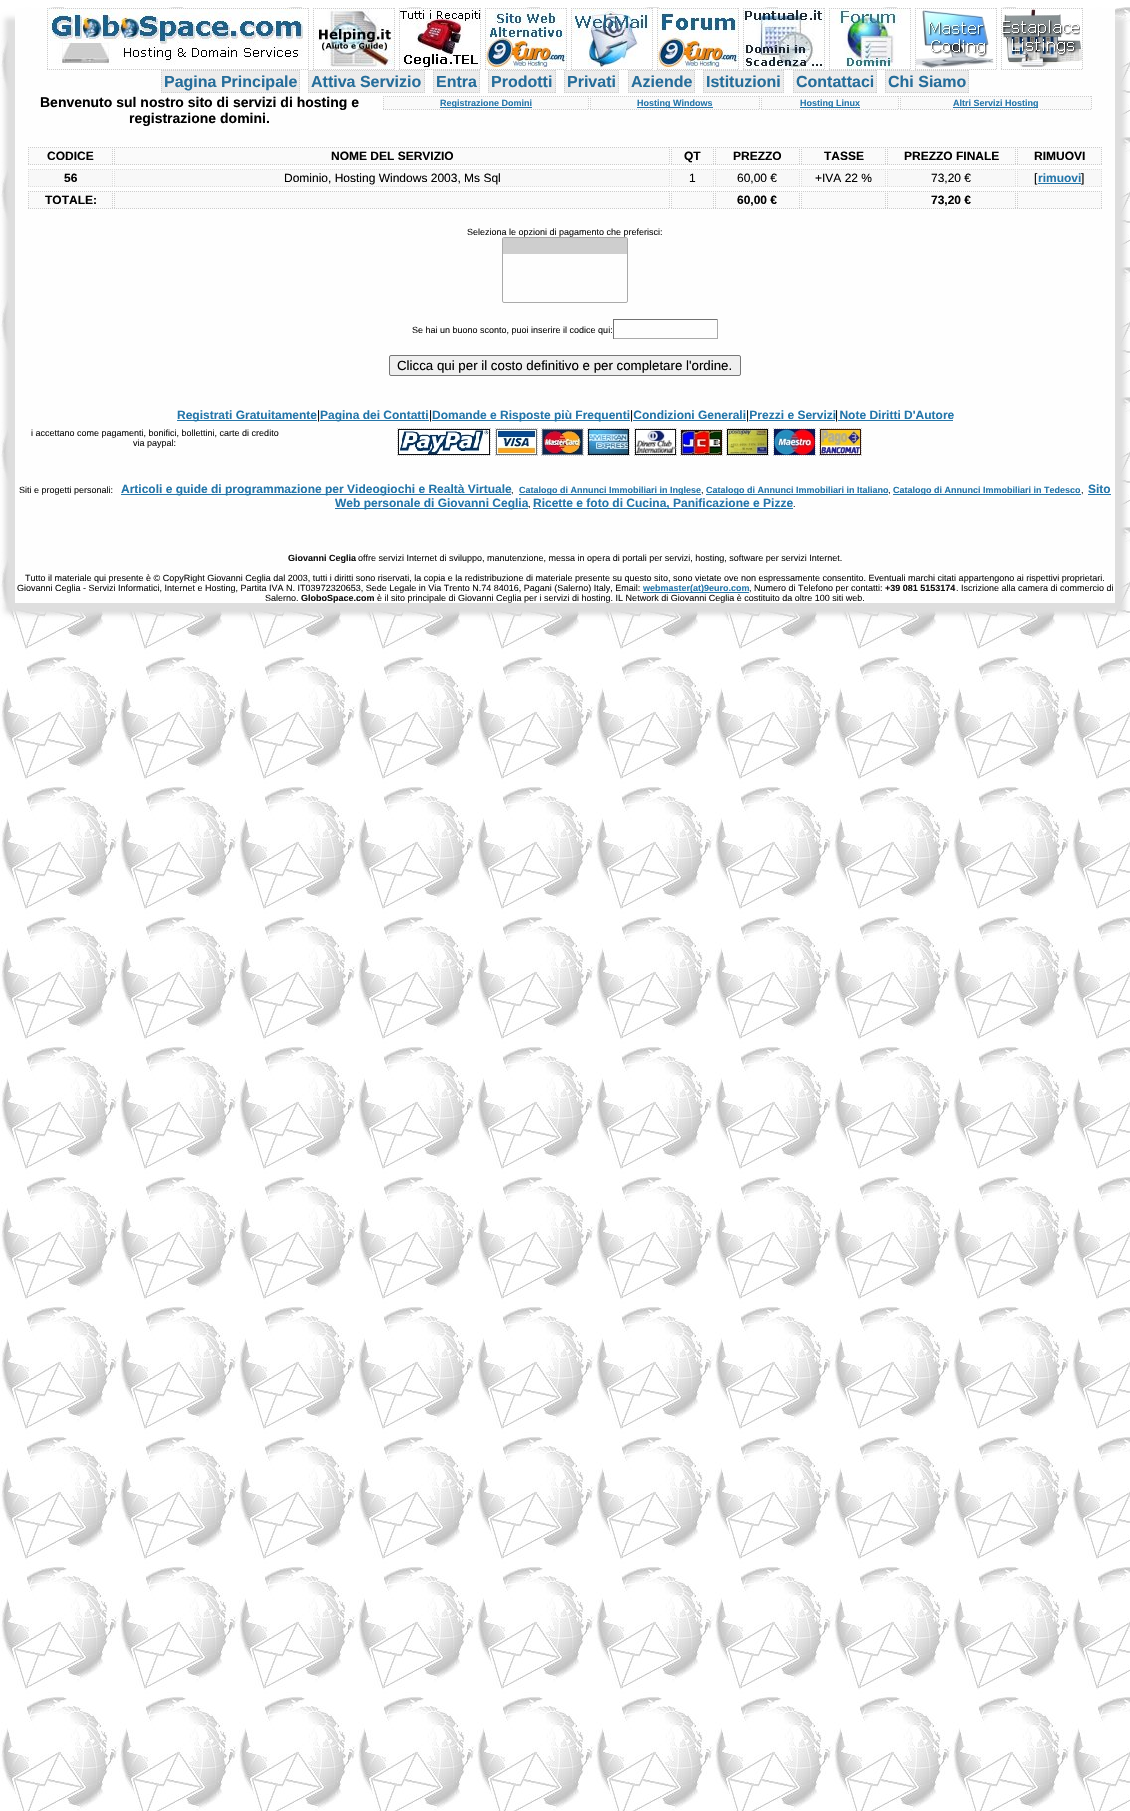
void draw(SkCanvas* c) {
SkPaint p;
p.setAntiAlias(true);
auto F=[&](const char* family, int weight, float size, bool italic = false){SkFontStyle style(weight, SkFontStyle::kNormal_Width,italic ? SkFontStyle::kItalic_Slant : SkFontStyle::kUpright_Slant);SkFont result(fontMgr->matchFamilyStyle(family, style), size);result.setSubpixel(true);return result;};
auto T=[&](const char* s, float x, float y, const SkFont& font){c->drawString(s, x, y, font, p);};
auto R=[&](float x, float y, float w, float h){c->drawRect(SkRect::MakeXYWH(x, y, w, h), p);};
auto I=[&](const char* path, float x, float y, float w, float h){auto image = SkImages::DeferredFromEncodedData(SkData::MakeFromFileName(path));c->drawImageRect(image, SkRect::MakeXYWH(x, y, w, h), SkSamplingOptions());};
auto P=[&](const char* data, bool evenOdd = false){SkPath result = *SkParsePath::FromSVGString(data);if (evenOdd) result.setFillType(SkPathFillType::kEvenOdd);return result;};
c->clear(0xffffffff);
I("1.png",0,7,1130,1804);
p.setColor(0xffdedede);
p.setMaskFilter(SkMaskFilter::MakeBlur(kNormal_SkBlurStyle, 2.5));
c->drawRect(SkRect::MakeXYWH(5,18,1100,595),p);
p.setMaskFilter(nullptr);
p.setMaskFilter(SkMaskFilter::MakeBlur(kNormal_SkBlurStyle, 2.5));
c->drawRect(SkRect::MakeXYWH(25,18,1100,595),p);
p.setMaskFilter(nullptr);
p.setColor(0xfffefefe);
R(15,8,1100,595);
p.setColor(0xfffafafa);
R(47,8,262,62);
p.setStroke(true);
p.setStrokeWidth(1);
p.setColor(0xffcdcdcd);
p.setPathEffect(SkDashPathEffect::Make({{1,1}}, 0));
c->drawPath(P("M47 8.5h262"),p);
p.setPathEffect(nullptr);
p.setPathEffect(SkDashPathEffect::Make({{1,1}}, 0));
c->drawPath(P("M47.5 8v62"),p);
p.setPathEffect(nullptr);
p.setPathEffect(SkDashPathEffect::Make({{1,1}}, 0));
c->drawPath(P("M308.5 8v62"),p);
p.setPathEffect(nullptr);
p.setStroke(false);
p.setColor(0xfffafafa);
R(313,8,82,62);
p.setStroke(true);
p.setColor(0xffcdcdcd);
p.setPathEffect(SkDashPathEffect::Make({{1,1}}, 0));
c->drawPath(P("M313 8.5h82"),p);
p.setPathEffect(nullptr);
p.setPathEffect(SkDashPathEffect::Make({{1,1}}, 0));
c->drawPath(P("M313.5 8v62"),p);
p.setPathEffect(nullptr);
p.setPathEffect(SkDashPathEffect::Make({{1,1}}, 0));
c->drawPath(P("M394.5 8v62"),p);
p.setPathEffect(nullptr);
p.setStroke(false);
p.setColor(0xfffafafa);
R(399,8,82,62);
p.setStroke(true);
p.setColor(0xffcdcdcd);
p.setPathEffect(SkDashPathEffect::Make({{1,1}}, 0));
c->drawPath(P("M399 8.5h82"),p);
p.setPathEffect(nullptr);
p.setPathEffect(SkDashPathEffect::Make({{1,1}}, 0));
c->drawPath(P("M399.5 8v62"),p);
p.setPathEffect(nullptr);
p.setPathEffect(SkDashPathEffect::Make({{1,1}}, 0));
c->drawPath(P("M480.5 8v62"),p);
p.setPathEffect(nullptr);
p.setStroke(false);
p.setColor(0xfffafafa);
R(485,8,82,62);
p.setStroke(true);
p.setColor(0xffcdcdcd);
p.setPathEffect(SkDashPathEffect::Make({{1,1}}, 0));
c->drawPath(P("M485 8.5h82"),p);
p.setPathEffect(nullptr);
p.setPathEffect(SkDashPathEffect::Make({{1,1}}, 0));
c->drawPath(P("M485.5 8v62"),p);
p.setPathEffect(nullptr);
p.setPathEffect(SkDashPathEffect::Make({{1,1}}, 0));
c->drawPath(P("M566.5 8v62"),p);
p.setPathEffect(nullptr);
p.setStroke(false);
p.setColor(0xfffafafa);
R(571,8,82,62);
p.setStroke(true);
p.setColor(0xffcdcdcd);
p.setPathEffect(SkDashPathEffect::Make({{1,1}}, 0));
c->drawPath(P("M571 8.5h82"),p);
p.setPathEffect(nullptr);
p.setPathEffect(SkDashPathEffect::Make({{1,1}}, 0));
c->drawPath(P("M571.5 8v62"),p);
p.setPathEffect(nullptr);
p.setPathEffect(SkDashPathEffect::Make({{1,1}}, 0));
c->drawPath(P("M652.5 8v62"),p);
p.setPathEffect(nullptr);
p.setStroke(false);
p.setColor(0xfffafafa);
R(657,8,82,62);
p.setStroke(true);
p.setColor(0xffcdcdcd);
p.setPathEffect(SkDashPathEffect::Make({{1,1}}, 0));
c->drawPath(P("M657 8.5h82"),p);
p.setPathEffect(nullptr);
p.setPathEffect(SkDashPathEffect::Make({{1,1}}, 0));
c->drawPath(P("M657.5 8v62"),p);
p.setPathEffect(nullptr);
p.setPathEffect(SkDashPathEffect::Make({{1,1}}, 0));
c->drawPath(P("M738.5 8v62"),p);
p.setPathEffect(nullptr);
p.setStroke(false);
p.setColor(0xfffafafa);
R(743,8,82,62);
p.setStroke(true);
p.setColor(0xffcdcdcd);
p.setPathEffect(SkDashPathEffect::Make({{1,1}}, 0));
c->drawPath(P("M743 8.5h82"),p);
p.setPathEffect(nullptr);
p.setPathEffect(SkDashPathEffect::Make({{1,1}}, 0));
c->drawPath(P("M743.5 8v62"),p);
p.setPathEffect(nullptr);
p.setPathEffect(SkDashPathEffect::Make({{1,1}}, 0));
c->drawPath(P("M824.5 8v62"),p);
p.setPathEffect(nullptr);
p.setStroke(false);
p.setColor(0xfffafafa);
R(829,8,82,62);
p.setStroke(true);
p.setColor(0xffcdcdcd);
p.setPathEffect(SkDashPathEffect::Make({{1,1}}, 0));
c->drawPath(P("M829 8.5h82"),p);
p.setPathEffect(nullptr);
p.setPathEffect(SkDashPathEffect::Make({{1,1}}, 0));
c->drawPath(P("M829.5 8v62"),p);
p.setPathEffect(nullptr);
p.setPathEffect(SkDashPathEffect::Make({{1,1}}, 0));
c->drawPath(P("M910.5 8v62"),p);
p.setPathEffect(nullptr);
p.setStroke(false);
p.setColor(0xfffafafa);
R(915,8,82,62);
p.setStroke(true);
p.setColor(0xffcdcdcd);
p.setPathEffect(SkDashPathEffect::Make({{1,1}}, 0));
c->drawPath(P("M915 8.5h82"),p);
p.setPathEffect(nullptr);
p.setPathEffect(SkDashPathEffect::Make({{1,1}}, 0));
c->drawPath(P("M915.5 8v62"),p);
p.setPathEffect(nullptr);
p.setPathEffect(SkDashPathEffect::Make({{1,1}}, 0));
c->drawPath(P("M996.5 8v62"),p);
p.setPathEffect(nullptr);
p.setStroke(false);
p.setColor(0xfffafafa);
R(1001,8,82,62);
p.setStroke(true);
p.setColor(0xffcdcdcd);
p.setPathEffect(SkDashPathEffect::Make({{1,1}}, 0));
c->drawPath(P("M1001 8.5h82"),p);
p.setPathEffect(nullptr);
I("2.png",48,9,260,60);
I("3.png",314,9,80,60);
I("4.png",400,9,80,60);
I("5.png",486,9,80,60);
I("6.png",572,9,80,60);
I("7.png",658,9,80,60);
I("8.png",744,9,80,60);
I("9.png",830,9,80,60);
I("10.png",916,9,80,60);
p.setPathEffect(SkDashPathEffect::Make({{1,1}}, 0));
c->drawPath(P("M1001.5 8v62"),p);
p.setPathEffect(nullptr);
I("11.png",1002,9,80,60);
p.setPathEffect(SkDashPathEffect::Make({{1,1}}, 0));
c->drawPath(P("M1082.5 8v62"),p);
p.setPathEffect(nullptr);
p.setPathEffect(SkDashPathEffect::Make({{1,1}}, 0));
c->drawPath(P("M47 69.5h262"),p);
p.setPathEffect(nullptr);
p.setPathEffect(SkDashPathEffect::Make({{1,1}}, 0));
c->drawPath(P("M313 69.5h82"),p);
p.setPathEffect(nullptr);
p.setPathEffect(SkDashPathEffect::Make({{1,1}}, 0));
c->drawPath(P("M399 69.5h82"),p);
p.setPathEffect(nullptr);
p.setPathEffect(SkDashPathEffect::Make({{1,1}}, 0));
c->drawPath(P("M485 69.5h82"),p);
p.setPathEffect(nullptr);
p.setPathEffect(SkDashPathEffect::Make({{1,1}}, 0));
c->drawPath(P("M571 69.5h82"),p);
p.setPathEffect(nullptr);
p.setPathEffect(SkDashPathEffect::Make({{1,1}}, 0));
c->drawPath(P("M657 69.5h82"),p);
p.setPathEffect(nullptr);
p.setPathEffect(SkDashPathEffect::Make({{1,1}}, 0));
c->drawPath(P("M743 69.5h82"),p);
p.setPathEffect(nullptr);
p.setPathEffect(SkDashPathEffect::Make({{1,1}}, 0));
c->drawPath(P("M829 69.5h82"),p);
p.setPathEffect(nullptr);
p.setPathEffect(SkDashPathEffect::Make({{1,1}}, 0));
c->drawPath(P("M915 69.5h82"),p);
p.setPathEffect(nullptr);
p.setPathEffect(SkDashPathEffect::Make({{1,1}}, 0));
c->drawPath(P("M1001 69.5h82"),p);
p.setPathEffect(nullptr);
p.setStroke(false);
p.setColor(0xffececec);
R(161,70,139,23);
auto f1 = F("Liberation Sans",700,16);
p.setColor(0xff266d9a);
T("Pagina Principale",164,87,f1);
p.setStroke(true);
p.setColor(0xffcdcdcd);
p.setPathEffect(SkDashPathEffect::Make({{1,1}}, 0));
c->drawPath(P("M161 70.5h139"),p);
p.setPathEffect(nullptr);
p.setPathEffect(SkDashPathEffect::Make({{1,1}}, 0));
c->drawPath(P("M299.5 70v23"),p);
p.setPathEffect(nullptr);
p.setPathEffect(SkDashPathEffect::Make({{1,1}}, 0));
c->drawPath(P("M161 92.5h139"),p);
p.setPathEffect(nullptr);
p.setPathEffect(SkDashPathEffect::Make({{1,1}}, 0));
c->drawPath(P("M161.5 70v23"),p);
p.setPathEffect(nullptr);
p.setStroke(false);
p.setColor(0xffececec);
R(308,70,117,23);
p.setColor(0xff266d9a);
T("Attiva Servizio",311,87,f1);
p.setStroke(true);
p.setColor(0xffcdcdcd);
p.setPathEffect(SkDashPathEffect::Make({{1,1}}, 0));
c->drawPath(P("M308 70.5h117"),p);
p.setPathEffect(nullptr);
p.setPathEffect(SkDashPathEffect::Make({{1,1}}, 0));
c->drawPath(P("M424.5 70v23"),p);
p.setPathEffect(nullptr);
p.setPathEffect(SkDashPathEffect::Make({{1,1}}, 0));
c->drawPath(P("M308 92.5h117"),p);
p.setPathEffect(nullptr);
p.setPathEffect(SkDashPathEffect::Make({{1,1}}, 0));
c->drawPath(P("M308.5 70v23"),p);
p.setPathEffect(nullptr);
p.setStroke(false);
p.setColor(0xffececec);
R(433,70,47,23);
p.setStroke(true);
p.setColor(0xffcdcdcd);
p.setPathEffect(SkDashPathEffect::Make({{1,1}}, 0));
c->drawPath(P("M433 70.5h47m-.5-.5v23m-46.5-.5h47m-46.5-22.5v23"),p);
p.setPathEffect(nullptr);
p.setStroke(false);
p.setColor(0xff266d9a);
T("Entra",436,87,f1);
p.setColor(0xffececec);
R(488,70,68,23);
p.setColor(0xff266d9a);
T("Prodotti",491,87,f1);
p.setStroke(true);
p.setColor(0xffcdcdcd);
p.setPathEffect(SkDashPathEffect::Make({{1,1}}, 0));
c->drawPath(P("M488 70.5h68"),p);
p.setPathEffect(nullptr);
p.setPathEffect(SkDashPathEffect::Make({{1,1}}, 0));
c->drawPath(P("M555.5 70v23"),p);
p.setPathEffect(nullptr);
p.setPathEffect(SkDashPathEffect::Make({{1,1}}, 0));
c->drawPath(P("M488 92.5h68"),p);
p.setPathEffect(nullptr);
p.setPathEffect(SkDashPathEffect::Make({{1,1}}, 0));
c->drawPath(P("M488.5 70v23"),p);
p.setPathEffect(nullptr);
p.setStroke(false);
p.setColor(0xffececec);
R(564,70,55,23);
p.setStroke(true);
p.setColor(0xffcdcdcd);
p.setPathEffect(SkDashPathEffect::Make({{1,1}}, 0));
c->drawPath(P("M564 70.5h55m-.5-.5v23m-54.5-.5h55m-54.5-22.5v23"),p);
p.setPathEffect(nullptr);
p.setStroke(false);
p.setColor(0xff266d9a);
T("Privati",567,87,f1);
p.setColor(0xffececec);
R(628,70,67,23);
p.setColor(0xff266d9a);
T("Aziende",631,87,f1);
p.setStroke(true);
p.setColor(0xffcdcdcd);
p.setPathEffect(SkDashPathEffect::Make({{1,1}}, 0));
c->drawPath(P("M628 70.5h67"),p);
p.setPathEffect(nullptr);
p.setPathEffect(SkDashPathEffect::Make({{1,1}}, 0));
c->drawPath(P("M694.5 70v23"),p);
p.setPathEffect(nullptr);
p.setPathEffect(SkDashPathEffect::Make({{1,1}}, 0));
c->drawPath(P("M628 92.5h67"),p);
p.setPathEffect(nullptr);
p.setPathEffect(SkDashPathEffect::Make({{1,1}}, 0));
c->drawPath(P("M628.5 70v23"),p);
p.setPathEffect(nullptr);
p.setStroke(false);
p.setColor(0xffececec);
R(703,70,81,23);
p.setColor(0xff266d9a);
T("Istituzioni",706,87,f1);
p.setStroke(true);
p.setColor(0xffcdcdcd);
p.setPathEffect(SkDashPathEffect::Make({{1,1}}, 0));
c->drawPath(P("M703 70.5h81"),p);
p.setPathEffect(nullptr);
p.setPathEffect(SkDashPathEffect::Make({{1,1}}, 0));
c->drawPath(P("M783.5 70v23"),p);
p.setPathEffect(nullptr);
p.setPathEffect(SkDashPathEffect::Make({{1,1}}, 0));
c->drawPath(P("M703 92.5h81"),p);
p.setPathEffect(nullptr);
p.setPathEffect(SkDashPathEffect::Make({{1,1}}, 0));
c->drawPath(P("M703.5 70v23"),p);
p.setPathEffect(nullptr);
p.setStroke(false);
p.setColor(0xffececec);
R(793,70,84,23);
p.setColor(0xff266d9a);
T("Contattaci",796,87,f1);
p.setStroke(true);
p.setColor(0xffcdcdcd);
p.setPathEffect(SkDashPathEffect::Make({{1,1}}, 0));
c->drawPath(P("M793 70.5h84"),p);
p.setPathEffect(nullptr);
p.setPathEffect(SkDashPathEffect::Make({{1,1}}, 0));
c->drawPath(P("M876.5 70v23"),p);
p.setPathEffect(nullptr);
p.setPathEffect(SkDashPathEffect::Make({{1,1}}, 0));
c->drawPath(P("M793 92.5h84"),p);
p.setPathEffect(nullptr);
p.setPathEffect(SkDashPathEffect::Make({{1,1}}, 0));
c->drawPath(P("M793.5 70v23"),p);
p.setPathEffect(nullptr);
p.setStroke(false);
p.setColor(0xffececec);
R(885,70,84,23);
p.setColor(0xff266d9a);
T("Chi Siamo",888,87,f1);
p.setStroke(true);
p.setColor(0xffcdcdcd);
p.setPathEffect(SkDashPathEffect::Make({{1,1}}, 0));
c->drawPath(P("M885 70.5h84"),p);
p.setPathEffect(nullptr);
p.setPathEffect(SkDashPathEffect::Make({{1,1}}, 0));
c->drawPath(P("M968.5 70v23"),p);
p.setPathEffect(nullptr);
p.setPathEffect(SkDashPathEffect::Make({{1,1}}, 0));
c->drawPath(P("M885 92.5h84"),p);
p.setPathEffect(nullptr);
p.setPathEffect(SkDashPathEffect::Make({{1,1}}, 0));
c->drawPath(P("M885.5 70v23"),p);
p.setPathEffect(nullptr);
auto f2 = F("Liberation Sans",700,14);
p.setStroke(false);
p.setColor(0xff000000);
T("Benvenuto sul nostro sito di servizi di hosting e",40,107,f2);
T("registrazione domini.",129,123,f2);
p.setColor(0xfffafafa);
R(383,96,206,14);
p.setStroke(true);
p.setColor(0xffcdcdcd);
p.setPathEffect(SkDashPathEffect::Make({{1,1}}, 0));
c->drawPath(P("M383 96.5h206"),p);
p.setPathEffect(nullptr);
p.setPathEffect(SkDashPathEffect::Make({{1,1}}, 0));
c->drawPath(P("M588.5 96v14"),p);
p.setPathEffect(nullptr);
p.setPathEffect(SkDashPathEffect::Make({{1,1}}, 0));
c->drawPath(P("M383 109.5h206"),p);
p.setPathEffect(nullptr);
p.setPathEffect(SkDashPathEffect::Make({{1,1}}, 0));
c->drawPath(P("M383.5 96v14"),p);
p.setPathEffect(nullptr);
p.setStroke(false);
p.setColor(0xff2476aa);
R(440,107,92,1);
auto f3 = F("Liberation Sans",700,9);
T("Registrazione Domini",440,106,f3);
p.setColor(0xfffafafa);
R(590,96,170,14);
p.setStroke(true);
p.setColor(0xffcdcdcd);
p.setPathEffect(SkDashPathEffect::Make({{1,1}}, 0));
c->drawPath(P("M590 96.5h170"),p);
p.setPathEffect(nullptr);
p.setPathEffect(SkDashPathEffect::Make({{1,1}}, 0));
c->drawPath(P("M759.5 96v14"),p);
p.setPathEffect(nullptr);
p.setPathEffect(SkDashPathEffect::Make({{1,1}}, 0));
c->drawPath(P("M590 109.5h170"),p);
p.setPathEffect(nullptr);
p.setPathEffect(SkDashPathEffect::Make({{1,1}}, 0));
c->drawPath(P("M590.5 96v14"),p);
p.setPathEffect(nullptr);
p.setStroke(false);
p.setColor(0xff2476aa);
R(637,107,76,1);
T("Hosting Windows",637,106,f3);
p.setColor(0xfffafafa);
R(761,96,138,14);
p.setStroke(true);
p.setColor(0xffcdcdcd);
p.setPathEffect(SkDashPathEffect::Make({{1,1}}, 0));
c->drawPath(P("M761 96.5h138"),p);
p.setPathEffect(nullptr);
p.setPathEffect(SkDashPathEffect::Make({{1,1}}, 0));
c->drawPath(P("M898.5 96v14"),p);
p.setPathEffect(nullptr);
p.setPathEffect(SkDashPathEffect::Make({{1,1}}, 0));
c->drawPath(P("M761 109.5h138"),p);
p.setPathEffect(nullptr);
p.setPathEffect(SkDashPathEffect::Make({{1,1}}, 0));
c->drawPath(P("M761.5 96v14"),p);
p.setPathEffect(nullptr);
p.setStroke(false);
p.setColor(0xff2476aa);
R(800,107,60,1);
T("Hosting Linux",800,106,f3);
p.setColor(0xfffafafa);
R(900,96,192,14);
p.setStroke(true);
p.setColor(0xffcdcdcd);
p.setPathEffect(SkDashPathEffect::Make({{1,1}}, 0));
c->drawPath(P("M900 96.5h192"),p);
p.setPathEffect(nullptr);
p.setPathEffect(SkDashPathEffect::Make({{1,1}}, 0));
c->drawPath(P("M1091.5 96v14"),p);
p.setPathEffect(nullptr);
p.setPathEffect(SkDashPathEffect::Make({{1,1}}, 0));
c->drawPath(P("M900 109.5h192"),p);
p.setPathEffect(nullptr);
p.setPathEffect(SkDashPathEffect::Make({{1,1}}, 0));
c->drawPath(P("M900.5 96v14"),p);
p.setPathEffect(nullptr);
p.setStroke(false);
p.setColor(0xff2476aa);
R(953,107,85,1);
T("Altri Servizi Hosting",953,106,f3);
p.setColor(0xfffafafa);
R(28,147,85,18);
p.setStroke(true);
p.setColor(0xffcdcdcd);
p.setPathEffect(SkDashPathEffect::Make({{1,1}}, 0));
c->drawPath(P("M28 147.5h85"),p);
p.setPathEffect(nullptr);
p.setPathEffect(SkDashPathEffect::Make({{1,1}}, 0));
c->drawPath(P("M112.5 147v18"),p);
p.setPathEffect(nullptr);
p.setPathEffect(SkDashPathEffect::Make({{1,1}}, 0));
c->drawPath(P("M28 164.5h85"),p);
p.setPathEffect(nullptr);
p.setPathEffect(SkDashPathEffect::Make({{1,1}}, 0));
c->drawPath(P("M28.5 147v18"),p);
p.setPathEffect(nullptr);
auto f4 = F("Liberation Sans",700,12);
p.setStroke(false);
p.setColor(0xff000000);
T("CODICE",47,160,f4);
p.setColor(0xfffafafa);
R(114,147,556,18);
p.setStroke(true);
p.setColor(0xffcdcdcd);
p.setPathEffect(SkDashPathEffect::Make({{1,1}}, 0));
c->drawPath(P("M114 147.5h556"),p);
p.setPathEffect(nullptr);
p.setPathEffect(SkDashPathEffect::Make({{1,1}}, 0));
c->drawPath(P("M669.5 147v18"),p);
p.setPathEffect(nullptr);
p.setPathEffect(SkDashPathEffect::Make({{1,1}}, 0));
c->drawPath(P("M114 164.5h556"),p);
p.setPathEffect(nullptr);
p.setPathEffect(SkDashPathEffect::Make({{1,1}}, 0));
c->drawPath(P("M114.5 147v18"),p);
p.setPathEffect(nullptr);
p.setStroke(false);
p.setColor(0xff000000);
T("NOME DEL SERVIZIO",331,160,f4);
p.setColor(0xfffafafa);
R(671,147,43,18);
p.setStroke(true);
p.setColor(0xffcdcdcd);
p.setPathEffect(SkDashPathEffect::Make({{1,1}}, 0));
c->drawPath(P("M671 147.5h43m-.5-.5v18m-42.5-.5h43m-42.5-17.5v18"),p);
p.setPathEffect(nullptr);
p.setStroke(false);
p.setColor(0xff000000);
T("QT",684,160,f4);
p.setColor(0xfffafafa);
R(715,147,85,18);
p.setStroke(true);
p.setColor(0xffcdcdcd);
p.setPathEffect(SkDashPathEffect::Make({{1,1}}, 0));
c->drawPath(P("M715 147.5h85"),p);
p.setPathEffect(nullptr);
p.setPathEffect(SkDashPathEffect::Make({{1,1}}, 0));
c->drawPath(P("M799.5 147v18"),p);
p.setPathEffect(nullptr);
p.setPathEffect(SkDashPathEffect::Make({{1,1}}, 0));
c->drawPath(P("M715 164.5h85"),p);
p.setPathEffect(nullptr);
p.setPathEffect(SkDashPathEffect::Make({{1,1}}, 0));
c->drawPath(P("M715.5 147v18"),p);
p.setPathEffect(nullptr);
p.setStroke(false);
p.setColor(0xff000000);
T("PREZZO",733,160,f4);
p.setColor(0xfffafafa);
R(801,147,85,18);
p.setStroke(true);
p.setColor(0xffcdcdcd);
p.setPathEffect(SkDashPathEffect::Make({{1,1}}, 0));
c->drawPath(P("M801 147.5h85"),p);
p.setPathEffect(nullptr);
p.setPathEffect(SkDashPathEffect::Make({{1,1}}, 0));
c->drawPath(P("M885.5 147v18"),p);
p.setPathEffect(nullptr);
p.setPathEffect(SkDashPathEffect::Make({{1,1}}, 0));
c->drawPath(P("M801 164.5h85"),p);
p.setPathEffect(nullptr);
p.setPathEffect(SkDashPathEffect::Make({{1,1}}, 0));
c->drawPath(P("M801.5 147v18"),p);
p.setPathEffect(nullptr);
p.setStroke(false);
p.setColor(0xff000000);
T("TASSE",824,160,f4);
p.setColor(0xfffafafa);
R(887,147,129,18);
p.setStroke(true);
p.setColor(0xffcdcdcd);
p.setPathEffect(SkDashPathEffect::Make({{1,1}}, 0));
c->drawPath(P("M887 147.5h129"),p);
p.setPathEffect(nullptr);
p.setPathEffect(SkDashPathEffect::Make({{1,1}}, 0));
c->drawPath(P("M1015.5 147v18"),p);
p.setPathEffect(nullptr);
p.setPathEffect(SkDashPathEffect::Make({{1,1}}, 0));
c->drawPath(P("M887 164.5h129"),p);
p.setPathEffect(nullptr);
p.setPathEffect(SkDashPathEffect::Make({{1,1}}, 0));
c->drawPath(P("M887.5 147v18"),p);
p.setPathEffect(nullptr);
p.setStroke(false);
p.setColor(0xff000000);
T("PREZZO FINALE",904,160,f4);
p.setColor(0xfffafafa);
R(1017,147,85,18);
p.setStroke(true);
p.setColor(0xffcdcdcd);
p.setPathEffect(SkDashPathEffect::Make({{1,1}}, 0));
c->drawPath(P("M1017 147.5h85"),p);
p.setPathEffect(nullptr);
p.setPathEffect(SkDashPathEffect::Make({{1,1}}, 0));
c->drawPath(P("M1101.5 147v18"),p);
p.setPathEffect(nullptr);
p.setPathEffect(SkDashPathEffect::Make({{1,1}}, 0));
c->drawPath(P("M1017 164.5h85"),p);
p.setPathEffect(nullptr);
p.setPathEffect(SkDashPathEffect::Make({{1,1}}, 0));
c->drawPath(P("M1017.5 147v18"),p);
p.setPathEffect(nullptr);
p.setStroke(false);
p.setColor(0xff000000);
T("RIMUOVI",1034,160,f4);
p.setColor(0xfff8f8f8);
R(28,169,85,18);
p.setStroke(true);
p.setColor(0xffdddddd);
p.setPathEffect(SkDashPathEffect::Make({{1,1}}, 0));
c->drawPath(P("M28 169.5h85"),p);
p.setPathEffect(nullptr);
p.setPathEffect(SkDashPathEffect::Make({{1,1}}, 0));
c->drawPath(P("M112.5 169v18"),p);
p.setPathEffect(nullptr);
p.setPathEffect(SkDashPathEffect::Make({{1,1}}, 0));
c->drawPath(P("M28 186.5h85"),p);
p.setPathEffect(nullptr);
p.setPathEffect(SkDashPathEffect::Make({{1,1}}, 0));
c->drawPath(P("M28.5 169v18"),p);
p.setPathEffect(nullptr);
p.setStroke(false);
p.setColor(0xff000000);
T("56",64,182,f4);
p.setColor(0xfff8f8f8);
R(114,169,556,18);
p.setStroke(true);
p.setColor(0xffdddddd);
p.setPathEffect(SkDashPathEffect::Make({{1,1}}, 0));
c->drawPath(P("M114 169.5h556"),p);
p.setPathEffect(nullptr);
p.setPathEffect(SkDashPathEffect::Make({{1,1}}, 0));
c->drawPath(P("M669.5 169v18"),p);
p.setPathEffect(nullptr);
p.setPathEffect(SkDashPathEffect::Make({{1,1}}, 0));
c->drawPath(P("M114 186.5h556"),p);
p.setPathEffect(nullptr);
p.setPathEffect(SkDashPathEffect::Make({{1,1}}, 0));
c->drawPath(P("M114.5 169v18"),p);
p.setPathEffect(nullptr);
auto f5 = F("Liberation Sans",400,12);
p.setStroke(false);
p.setColor(0xff000000);
T("Dominio, Hosting Windows 2003, Ms Sql",284,182,f5);
p.setColor(0xfff8f8f8);
R(671,169,43,18);
p.setStroke(true);
p.setColor(0xffdddddd);
p.setPathEffect(SkDashPathEffect::Make({{1,1}}, 0));
c->drawPath(P("M671 169.5h43m-.5-.5v18m-42.5-.5h43m-42.5-17.5v18"),p);
p.setPathEffect(nullptr);
p.setStroke(false);
p.setColor(0xff000000);
T("1",689,182,f5);
p.setColor(0xfff8f8f8);
R(715,169,85,18);
p.setStroke(true);
p.setColor(0xffdddddd);
p.setPathEffect(SkDashPathEffect::Make({{1,1}}, 0));
c->drawPath(P("M715 169.5h85"),p);
p.setPathEffect(nullptr);
p.setPathEffect(SkDashPathEffect::Make({{1,1}}, 0));
c->drawPath(P("M799.5 169v18"),p);
p.setPathEffect(nullptr);
p.setPathEffect(SkDashPathEffect::Make({{1,1}}, 0));
c->drawPath(P("M715 186.5h85"),p);
p.setPathEffect(nullptr);
p.setPathEffect(SkDashPathEffect::Make({{1,1}}, 0));
c->drawPath(P("M715.5 169v18"),p);
p.setPathEffect(nullptr);
p.setStroke(false);
p.setColor(0xff000000);
T("60,00 €",737,182,f5);
p.setColor(0xfff8f8f8);
R(801,169,85,18);
p.setStroke(true);
p.setColor(0xffdddddd);
p.setPathEffect(SkDashPathEffect::Make({{1,1}}, 0));
c->drawPath(P("M801 169.5h85"),p);
p.setPathEffect(nullptr);
p.setPathEffect(SkDashPathEffect::Make({{1,1}}, 0));
c->drawPath(P("M885.5 169v18"),p);
p.setPathEffect(nullptr);
p.setPathEffect(SkDashPathEffect::Make({{1,1}}, 0));
c->drawPath(P("M801 186.5h85"),p);
p.setPathEffect(nullptr);
p.setPathEffect(SkDashPathEffect::Make({{1,1}}, 0));
c->drawPath(P("M801.5 169v18"),p);
p.setPathEffect(nullptr);
p.setStroke(false);
p.setColor(0xff000000);
T("+IVA 22 %",815,182,f5);
p.setColor(0xfff8f8f8);
R(887,169,129,18);
p.setStroke(true);
p.setColor(0xffdddddd);
p.setPathEffect(SkDashPathEffect::Make({{1,1}}, 0));
c->drawPath(P("M887 169.5h129"),p);
p.setPathEffect(nullptr);
p.setPathEffect(SkDashPathEffect::Make({{1,1}}, 0));
c->drawPath(P("M1015.5 169v18"),p);
p.setPathEffect(nullptr);
p.setPathEffect(SkDashPathEffect::Make({{1,1}}, 0));
c->drawPath(P("M887 186.5h129"),p);
p.setPathEffect(nullptr);
p.setPathEffect(SkDashPathEffect::Make({{1,1}}, 0));
c->drawPath(P("M887.5 169v18"),p);
p.setPathEffect(nullptr);
p.setStroke(false);
p.setColor(0xff000000);
T("73,20 €",931,182,f5);
p.setColor(0xfff8f8f8);
R(1017,169,85,18);
p.setStroke(true);
p.setColor(0xffdddddd);
p.setPathEffect(SkDashPathEffect::Make({{1,1}}, 0));
c->drawPath(P("M1017 169.5h85"),p);
p.setPathEffect(nullptr);
p.setPathEffect(SkDashPathEffect::Make({{1,1}}, 0));
c->drawPath(P("M1101.5 169v18"),p);
p.setPathEffect(nullptr);
p.setPathEffect(SkDashPathEffect::Make({{1,1}}, 0));
c->drawPath(P("M1017 186.5h85"),p);
p.setPathEffect(nullptr);
p.setPathEffect(SkDashPathEffect::Make({{1,1}}, 0));
c->drawPath(P("M1017.5 169v18"),p);
p.setPathEffect(nullptr);
p.setStroke(false);
p.setColor(0xff000000);
T("[",1034,182,f5);
p.setColor(0xff2476aa);
T("rimuovi",1038,182,f4);
R(1038,183,43,1);
p.setColor(0xff000000);
T("]",1081,182,f5);
p.setColor(0xfffafafa);
R(28,191,85,18);
p.setStroke(true);
p.setColor(0xffcdcdcd);
p.setPathEffect(SkDashPathEffect::Make({{1,1}}, 0));
c->drawPath(P("M28 191.5h85"),p);
p.setPathEffect(nullptr);
p.setPathEffect(SkDashPathEffect::Make({{1,1}}, 0));
c->drawPath(P("M112.5 191v18"),p);
p.setPathEffect(nullptr);
p.setPathEffect(SkDashPathEffect::Make({{1,1}}, 0));
c->drawPath(P("M28 208.5h85"),p);
p.setPathEffect(nullptr);
p.setPathEffect(SkDashPathEffect::Make({{1,1}}, 0));
c->drawPath(P("M28.5 191v18"),p);
p.setPathEffect(nullptr);
p.setStroke(false);
p.setColor(0xff000000);
T("TOTALE:",45,204,f4);
p.setColor(0xfffafafa);
R(114,191,556,18);
p.setStroke(true);
p.setColor(0xffcdcdcd);
p.setPathEffect(SkDashPathEffect::Make({{1,1}}, 0));
c->drawPath(P("M114 191.5h556"),p);
p.setPathEffect(nullptr);
p.setPathEffect(SkDashPathEffect::Make({{1,1}}, 0));
c->drawPath(P("M669.5 191v18"),p);
p.setPathEffect(nullptr);
p.setPathEffect(SkDashPathEffect::Make({{1,1}}, 0));
c->drawPath(P("M114 208.5h556"),p);
p.setPathEffect(nullptr);
p.setPathEffect(SkDashPathEffect::Make({{1,1}}, 0));
c->drawPath(P("M114.5 191v18"),p);
p.setPathEffect(nullptr);
p.setStroke(false);
p.setColor(0xfffafafa);
R(671,191,43,18);
p.setStroke(true);
p.setColor(0xffcdcdcd);
p.setPathEffect(SkDashPathEffect::Make({{1,1}}, 0));
c->drawPath(P("M671 191.5h43m-.5-.5v18m-42.5-.5h43m-42.5-17.5v18"),p);
p.setPathEffect(nullptr);
p.setStroke(false);
p.setColor(0xfffafafa);
R(715,191,85,18);
p.setStroke(true);
p.setColor(0xffcdcdcd);
p.setPathEffect(SkDashPathEffect::Make({{1,1}}, 0));
c->drawPath(P("M715 191.5h85"),p);
p.setPathEffect(nullptr);
p.setPathEffect(SkDashPathEffect::Make({{1,1}}, 0));
c->drawPath(P("M799.5 191v18"),p);
p.setPathEffect(nullptr);
p.setPathEffect(SkDashPathEffect::Make({{1,1}}, 0));
c->drawPath(P("M715 208.5h85"),p);
p.setPathEffect(nullptr);
p.setPathEffect(SkDashPathEffect::Make({{1,1}}, 0));
c->drawPath(P("M715.5 191v18"),p);
p.setPathEffect(nullptr);
p.setStroke(false);
p.setColor(0xff000000);
T("60,00 €",737,204,f4);
p.setColor(0xfffafafa);
R(801,191,85,18);
p.setStroke(true);
p.setColor(0xffcdcdcd);
p.setPathEffect(SkDashPathEffect::Make({{1,1}}, 0));
c->drawPath(P("M801 191.5h85"),p);
p.setPathEffect(nullptr);
p.setPathEffect(SkDashPathEffect::Make({{1,1}}, 0));
c->drawPath(P("M885.5 191v18"),p);
p.setPathEffect(nullptr);
p.setPathEffect(SkDashPathEffect::Make({{1,1}}, 0));
c->drawPath(P("M801 208.5h85"),p);
p.setPathEffect(nullptr);
p.setPathEffect(SkDashPathEffect::Make({{1,1}}, 0));
c->drawPath(P("M801.5 191v18"),p);
p.setPathEffect(nullptr);
p.setStroke(false);
p.setColor(0xfffafafa);
R(887,191,129,18);
p.setStroke(true);
p.setColor(0xffcdcdcd);
p.setPathEffect(SkDashPathEffect::Make({{1,1}}, 0));
c->drawPath(P("M887 191.5h129"),p);
p.setPathEffect(nullptr);
p.setPathEffect(SkDashPathEffect::Make({{1,1}}, 0));
c->drawPath(P("M1015.5 191v18"),p);
p.setPathEffect(nullptr);
p.setPathEffect(SkDashPathEffect::Make({{1,1}}, 0));
c->drawPath(P("M887 208.5h129"),p);
p.setPathEffect(nullptr);
p.setPathEffect(SkDashPathEffect::Make({{1,1}}, 0));
c->drawPath(P("M887.5 191v18"),p);
p.setPathEffect(nullptr);
p.setStroke(false);
p.setColor(0xff000000);
T("73,20 €",931,204,f4);
p.setColor(0xfffafafa);
R(1017,191,85,18);
p.setStroke(true);
p.setColor(0xffcdcdcd);
p.setPathEffect(SkDashPathEffect::Make({{1,1}}, 0));
c->drawPath(P("M1017 191.5h85"),p);
p.setPathEffect(nullptr);
p.setPathEffect(SkDashPathEffect::Make({{1,1}}, 0));
c->drawPath(P("M1101.5 191v18"),p);
p.setPathEffect(nullptr);
p.setPathEffect(SkDashPathEffect::Make({{1,1}}, 0));
c->drawPath(P("M1017 208.5h85"),p);
p.setPathEffect(nullptr);
p.setPathEffect(SkDashPathEffect::Make({{1,1}}, 0));
c->drawPath(P("M1017.5 191v18"),p);
p.setPathEffect(nullptr);
auto f6 = F("Liberation Sans",400,9);
p.setStroke(false);
p.setColor(0xff101010);
T("Seleziona le opzioni di pagamento che preferisci:",467,235,f6);
p.setStroke(true);
p.setColor(0xffaaaaaa);
c->drawRoundRect(SkRect::MakeXYWH(502.5,237.5,125,65),1.5,1.5,p);
p.setStroke(false);
p.setColor(0xffcecece);
c->drawPath(P("M504 238h122c.5 0 1 .5 1 1v15h-124v-15c0-.5 .5-1 1-1z"),p);
p.setColor(0xff101010);
T("Se hai un buono sconto, puoi inserire il codice qui:",412,333,f6);
p.setColor(0xff717171);
R(613,319,105,1);
p.setColor(0xffaaaaaa);
R(717,319,1,20);
R(613,338,105,1);
p.setColor(0xff717171);
R(613,319,1,20);
p.setColor(0xffefefef);
c->drawRoundRect(SkRect::MakeXYWH(389.5,355.5,351,20),1.5,1.5,p);
p.setStroke(true);
p.setColor(0xff767676);
c->drawRoundRect(SkRect::MakeXYWH(389.5,355.5,351,20),1.5,1.5,p);
auto f7 = F("Liberation Sans",400,13.3);
p.setStroke(false);
p.setColor(0xff000000);
T("Clicca qui per il costo definitivo e per completare l'ordine.",397,370,f7);
p.setColor(0xff2476aa);
R(177,420,140,1);
T("Registrati Gratuitamente",177,419,f4);
p.setColor(0xff000000);
T("|",317,419,f5);
p.setColor(0xff2476aa);
R(320,420,109,1);
T("Pagina dei Contatti",320,419,f4);
p.setColor(0xff000000);
T("|",429,419,f5);
p.setColor(0xff2476aa);
R(432,420,198,1);
T("Domande e Risposte più Frequenti Condizioni Generali Prezzi e Servizi Note Diritti D'Autore",432,419,f4);
p.setColor(0xff000000);
T("|",630,419,f5);
p.setColor(0xff2476aa);
R(633,420,113,1);
p.setColor(0xff000000);
T("|",746,419,f5);
p.setColor(0xff2476aa);
R(749,420,86,1);
p.setColor(0xff000000);
T("|",835,419,f5);
p.setColor(0xff2476aa);
R(838,420,115,1);
p.setColor(0xff101010);
T("i accettano come pagamenti, bonifici, bollettini, carte di credito",31,436,f6);
T("via paypal:",133,446,f6);
p.setColor(0xfffafafa);
R(397,428,94,28);
p.setStroke(true);
p.setColor(0xffcdcdcd);
p.setPathEffect(SkDashPathEffect::Make({{1,1}}, 0));
c->drawPath(P("M397 428.5h94"),p);
p.setPathEffect(nullptr);
p.setPathEffect(SkDashPathEffect::Make({{1,1}}, 0));
c->drawPath(P("M397.5 428v28"),p);
p.setPathEffect(nullptr);
p.setPathEffect(SkDashPathEffect::Make({{1,1}}, 0));
c->drawPath(P("M490.5 428v28"),p);
p.setPathEffect(nullptr);
p.setStroke(false);
p.setColor(0xfffafafa);
R(495,428,43,28);
p.setStroke(true);
p.setColor(0xffcdcdcd);
p.setPathEffect(SkDashPathEffect::Make({{1,1}}, 0));
c->drawPath(P("M495 428.5h43m-.5-.5v28m-42.5-.5h43m-42.5-27.5v28"),p);
p.setPathEffect(nullptr);
p.setStroke(false);
p.setColor(0xfffafafa);
R(541,428,43,28);
p.setStroke(true);
p.setColor(0xffcdcdcd);
p.setPathEffect(SkDashPathEffect::Make({{1,1}}, 0));
c->drawPath(P("M541 428.5h43m-.5-.5v28m-42.5-.5h43m-42.5-27.5v28"),p);
p.setPathEffect(nullptr);
p.setStroke(false);
p.setColor(0xfffafafa);
R(587,428,43,28);
p.setStroke(true);
p.setColor(0xffcdcdcd);
p.setPathEffect(SkDashPathEffect::Make({{1,1}}, 0));
c->drawPath(P("M587 428.5h43m-.5-.5v28m-42.5-.5h43m-42.5-27.5v28"),p);
p.setPathEffect(nullptr);
p.setStroke(false);
p.setColor(0xfffafafa);
R(634,428,43,28);
p.setStroke(true);
p.setColor(0xffcdcdcd);
p.setPathEffect(SkDashPathEffect::Make({{1,1}}, 0));
c->drawPath(P("M634 428.5h43m-.5-.5v28m-42.5-.5h43m-42.5-27.5v28"),p);
p.setPathEffect(nullptr);
p.setStroke(false);
p.setColor(0xfffafafa);
R(726,428,43,28);
p.setStroke(true);
p.setColor(0xffcdcdcd);
p.setPathEffect(SkDashPathEffect::Make({{1,1}}, 0));
c->drawPath(P("M726 428.5h43m-.5-.5v28m-42.5-.5h43m-42.5-27.5v28"),p);
p.setPathEffect(nullptr);
p.setStroke(false);
p.setColor(0xfffafafa);
R(773,428,43,28);
p.setStroke(true);
p.setColor(0xffcdcdcd);
p.setPathEffect(SkDashPathEffect::Make({{1,1}}, 0));
c->drawPath(P("M773 428.5h43m-.5-.5v28m-42.5-.5h43m-42.5-27.5v28"),p);
p.setPathEffect(nullptr);
p.setStroke(false);
p.setColor(0xfffafafa);
R(819,428,43,28);
I("12.png",398,429,92,26);
I("13.png",496,429,41,26);
I("14.png",542,429,41,26);
I("15.png",588,429,41,26);
I("16.png",635,429,41,26);
R(680,429,43,27);
p.setStroke(true);
p.setColor(0xffcdcdcd);
p.setPathEffect(SkDashPathEffect::Make({{1,1}}, 0));
c->drawPath(P("M819 428.5h43m-.5-.5v28m-42.5-.5h43m-42.5-27.5v28"),p);
p.setPathEffect(nullptr);
p.setPathEffect(SkDashPathEffect::Make({{1,1}}, 0));
c->drawPath(P("M680 429.5h43m-.5-.5v27m-42.5-.5h43m-42.5-26.5v27"),p);
p.setPathEffect(nullptr);
I("17.png",727,429,41,26);
I("18.png",774,429,41,26);
I("19.png",820,429,41,26);
I("20.png",681,430,41,25);
p.setPathEffect(SkDashPathEffect::Make({{1,1}}, 0));
c->drawPath(P("M397 455.5h94"),p);
p.setPathEffect(nullptr);
p.setStroke(false);
p.setColor(0xff101010);
T("Siti e progetti personali:",19,493,f6);
p.setColor(0xff2476aa);
R(121,494,390,1);
T("Articoli e guide di programmazione per Videogiochi e Realtà Virtuale",121,493,f4);
p.setColor(0xff101010);
T(",",511,493,f6);
p.setColor(0xff2476aa);
R(519,494,182,1);
T("Catalogo di Annunci Immobiliari in Inglese",519,493,f3);
p.setColor(0xff101010);
T(",",701,493,f6);
p.setColor(0xff2476aa);
R(706,494,182,1);
T("Catalogo di Annunci Immobiliari in Italiano",706,493,f3);
p.setColor(0xff101010);
T(",",888,493,f6);
p.setColor(0xff2476aa);
R(893,494,188,1);
T("Catalogo di Annunci Immobiliari in Tedesco",893,493,f3);
p.setColor(0xff101010);
T(",",1081,493,f6);
p.setColor(0xff2476aa);
T("Sito",1088,493,f4);
R(1088,494,23,1);
R(335,508,193,1);
T("Web personale di Giovanni Ceglia",335,507,f4);
p.setColor(0xff101010);
T(",",528,507,f6);
p.setColor(0xff2476aa);
R(533,508,260,1);
T("Ricette e foto di Cucina, Panificazione e Pizze",533,507,f4);
p.setColor(0xff101010);
T(".",793,507,f6);
T("Giovanni Ceglia",288,561,f3);
T("offre servizi Internet di sviluppo, manutenzione, messa in opera di portali per servizi, hosting, software per servizi Internet.",358,561,f6);
T("Tutto il materiale qui presente è © CopyRight Giovanni Ceglia dal 2003, tutti i diritti sono riservati, la copia e la redistribuzione di materiale presente su questo sito, sono vietate ove non espressamente consentito. Eventuali marchi citati appartengono ai rispettivi proprietari.",25,581,f6);
T("Giovanni Ceglia - Servizi Informatici, Internet e Hosting, Partita IVA N. IT03972320653, Sede Legale in Via Trento N.74 84016, Pagani (Salerno) Italy, Email:",17,591,f6);
p.setColor(0xff2476aa);
R(643,592,106,1);
T("webmaster(at)9euro.com",643,591,f3);
p.setColor(0xff101010);
T(", Numero di Telefono per contatti:",749,591,f6);
T("+39 081 5153174",885,591,f3);
T(". Iscrizione alla camera di commercio di",956,591,f6);
T("Salerno.",265,601,f6);
T("GloboSpace.com",301,601,f3);
T("è il sito principale di Giovanni Ceglia per i servizi di hosting. IL Network di Giovanni Ceglia è costituito da oltre 100 siti web.",377,601,f6);
}
